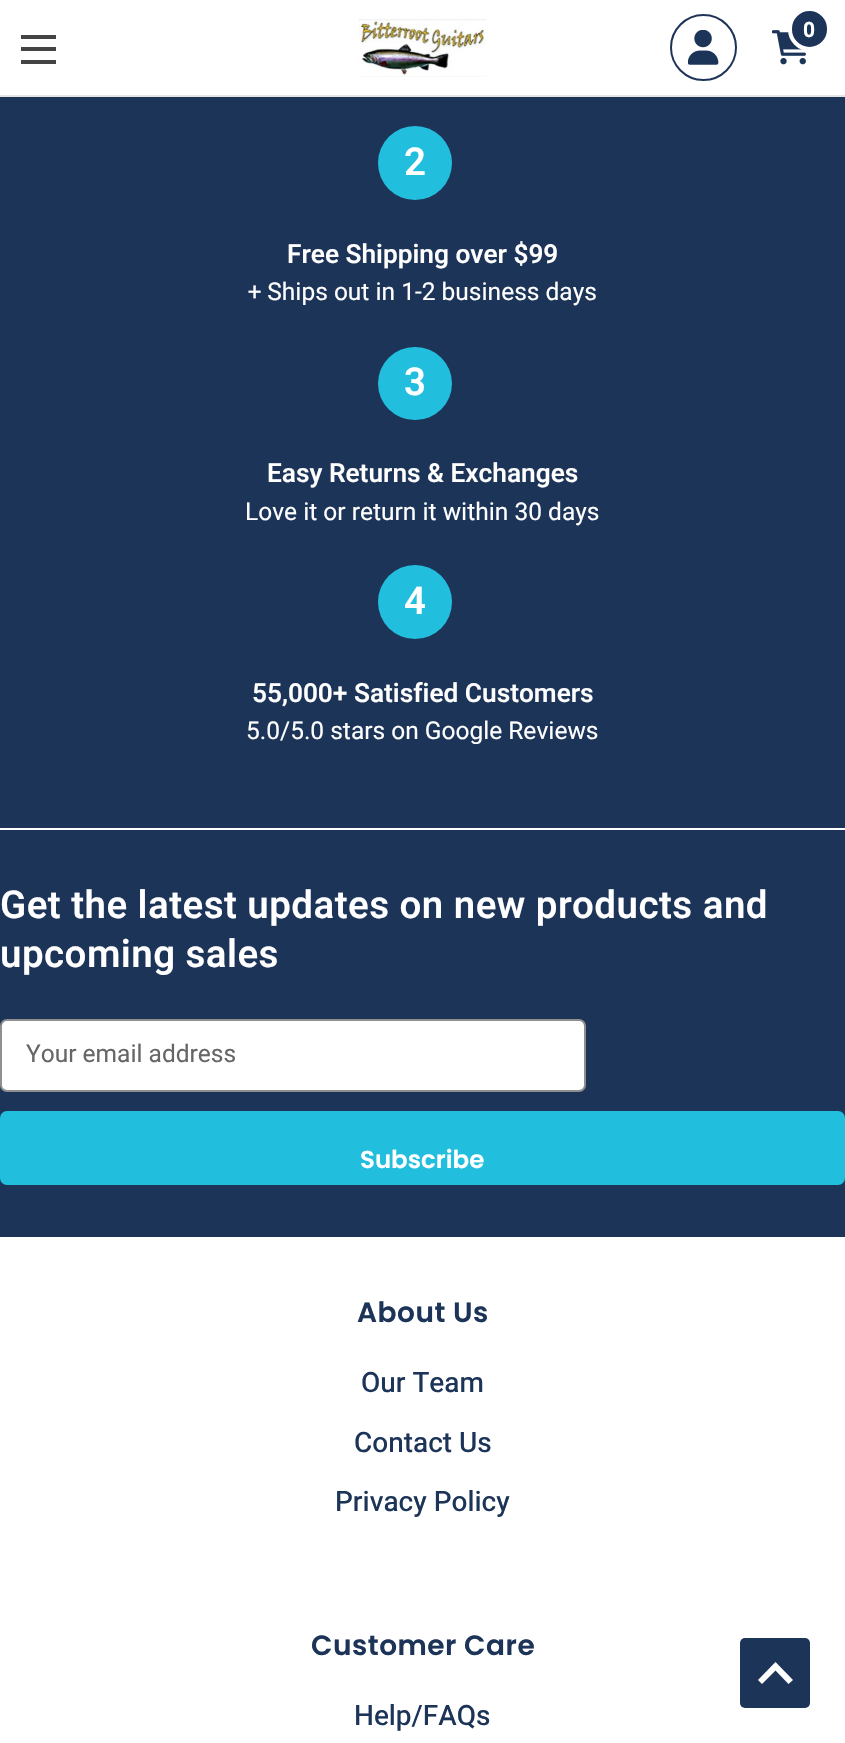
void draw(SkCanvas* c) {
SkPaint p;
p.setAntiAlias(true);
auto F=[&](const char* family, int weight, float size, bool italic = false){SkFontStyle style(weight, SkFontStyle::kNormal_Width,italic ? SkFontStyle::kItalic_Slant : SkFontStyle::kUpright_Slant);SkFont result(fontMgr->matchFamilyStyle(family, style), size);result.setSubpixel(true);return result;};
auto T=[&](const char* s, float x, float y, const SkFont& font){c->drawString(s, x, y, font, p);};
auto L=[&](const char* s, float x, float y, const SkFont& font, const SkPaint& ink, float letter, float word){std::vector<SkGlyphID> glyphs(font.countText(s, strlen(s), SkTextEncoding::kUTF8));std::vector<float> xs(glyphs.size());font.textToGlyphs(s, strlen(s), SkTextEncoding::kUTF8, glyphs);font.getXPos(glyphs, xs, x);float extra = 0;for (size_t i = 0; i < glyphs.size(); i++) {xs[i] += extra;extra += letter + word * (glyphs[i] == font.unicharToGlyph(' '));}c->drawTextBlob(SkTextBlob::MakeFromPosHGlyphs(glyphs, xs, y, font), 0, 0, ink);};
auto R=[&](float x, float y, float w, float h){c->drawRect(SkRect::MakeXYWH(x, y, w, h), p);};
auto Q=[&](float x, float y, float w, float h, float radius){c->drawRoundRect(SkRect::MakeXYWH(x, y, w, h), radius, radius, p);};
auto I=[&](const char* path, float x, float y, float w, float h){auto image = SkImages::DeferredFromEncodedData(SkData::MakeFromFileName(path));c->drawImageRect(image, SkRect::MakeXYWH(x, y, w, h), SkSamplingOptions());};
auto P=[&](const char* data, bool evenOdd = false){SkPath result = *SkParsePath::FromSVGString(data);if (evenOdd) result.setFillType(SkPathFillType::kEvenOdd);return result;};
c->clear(0xffffffff);
p.setColor(0xffe5e5e5);
R(0,95,845,2);
I("1.png",358,19,129,58);
p.setStroke(true);
p.setStrokeWidth(2);
p.setColor(0xff1d3459);
c->drawCircle(703.5,47.5,32.5,p);
I("2.png",688,30,31,35);
I("3.png",772,30,34,35);
p.setStroke(false);
c->drawRoundRect(SkRect::MakeXYWH(790,9,39,40),19.5,19.5,p);
p.setStroke(true);
p.setStrokeWidth(4);
p.setColor(0xffffffff);
c->drawRoundRect(SkRect::MakeXYWH(790,9,39,40),19.5,19.5,p);
auto f1 = F("Heebo",700,21);
p.setStroke(false);
T("0",803,37,f1);
p.setColor(0xff444444);
R(21,47,35,4);
R(21,35,35,4);
R(21,60,35,4);
p.setColor(0xff1d3459);
R(0,97,845,731);
p.setColor(0xff21bedd);
c->drawCircle(415,163,37,p);
auto f2 = F("Heebo",600,38.5);
p.setColor(0xffffffff);
T("2",404,175,f2);
auto f3 = F("Heebo",600,26.25);
T("Free Shipping over $99",287,263,f3);
auto f4 = F("Heebo",400,24.5);
T("+ Ships out in 1-2 business days",248,300,f4);
p.setColor(0xff21bedd);
Q(378,347,74,73,36.5);
p.setColor(0xffffffff);
T("3",404,395,f2);
T("Easy Returns & Exchanges",267,482,f3);
T("Love it or return it within 30 days",245,520,f4);
p.setColor(0xff21bedd);
c->drawCircle(415,602,37,p);
p.setColor(0xffffffff);
T("4",404,614,f2);
T("55,000+ Satisfied Customers",252,702,f3);
T("5.0/5.0 stars on Google Reviews",246,739,f4);
p.setColor(0xff1d3459);
R(0,830,845,407);
p.setColor(0xffffffff);
L("Get the latest updates on new products and",0,918,f2,p,.45,0);
L("upcoming sales",0,967,f2,p,.45,0);
c->drawRoundRect(SkRect::MakeXYWH(1,1020,584,71),6,6,p);
p.setStroke(true);
p.setStrokeWidth(2);
p.setColor(0xff8f8f8f);
c->drawRoundRect(SkRect::MakeXYWH(1,1020,584,71),6,6,p);
p.setStroke(false);
p.setColor(0xff666666);
T("Your email address",26,1062,f4);
p.setColor(0xff21bedd);
c->drawRoundRect(SkRect::MakeXYWH(1,1112,843,72),6,6,p);
p.setStroke(true);
c->drawRoundRect(SkRect::MakeXYWH(1,1112,843,72),6,6,p);
auto f5 = F("Poppins",600,24.5);
p.setStroke(false);
p.setColor(0xffffffff);
T("Subscribe",360,1168,f5);
auto f6 = F("Poppins",600,28);
p.setColor(0xff1d3459);
L("About Us",357,1322,f6,p,.5,0);
auto f7 = F("Heebo",500,28);
T("Our Team",361,1392,f7);
T("Contact Us",354,1452,f7);
T("Privacy Policy",335,1511,f7);
L("Customer Care",311,1655,f6,p,.5,0);
T("Help/FAQs",354,1725,f7);
Q(740,1638,70,70,5);
p.setColor(0xffffffff);
c->drawPath(P("M758 1680l4 4l13.5-13.5l13 13.5l4.5-4l-17.5-18z"),p);
}
